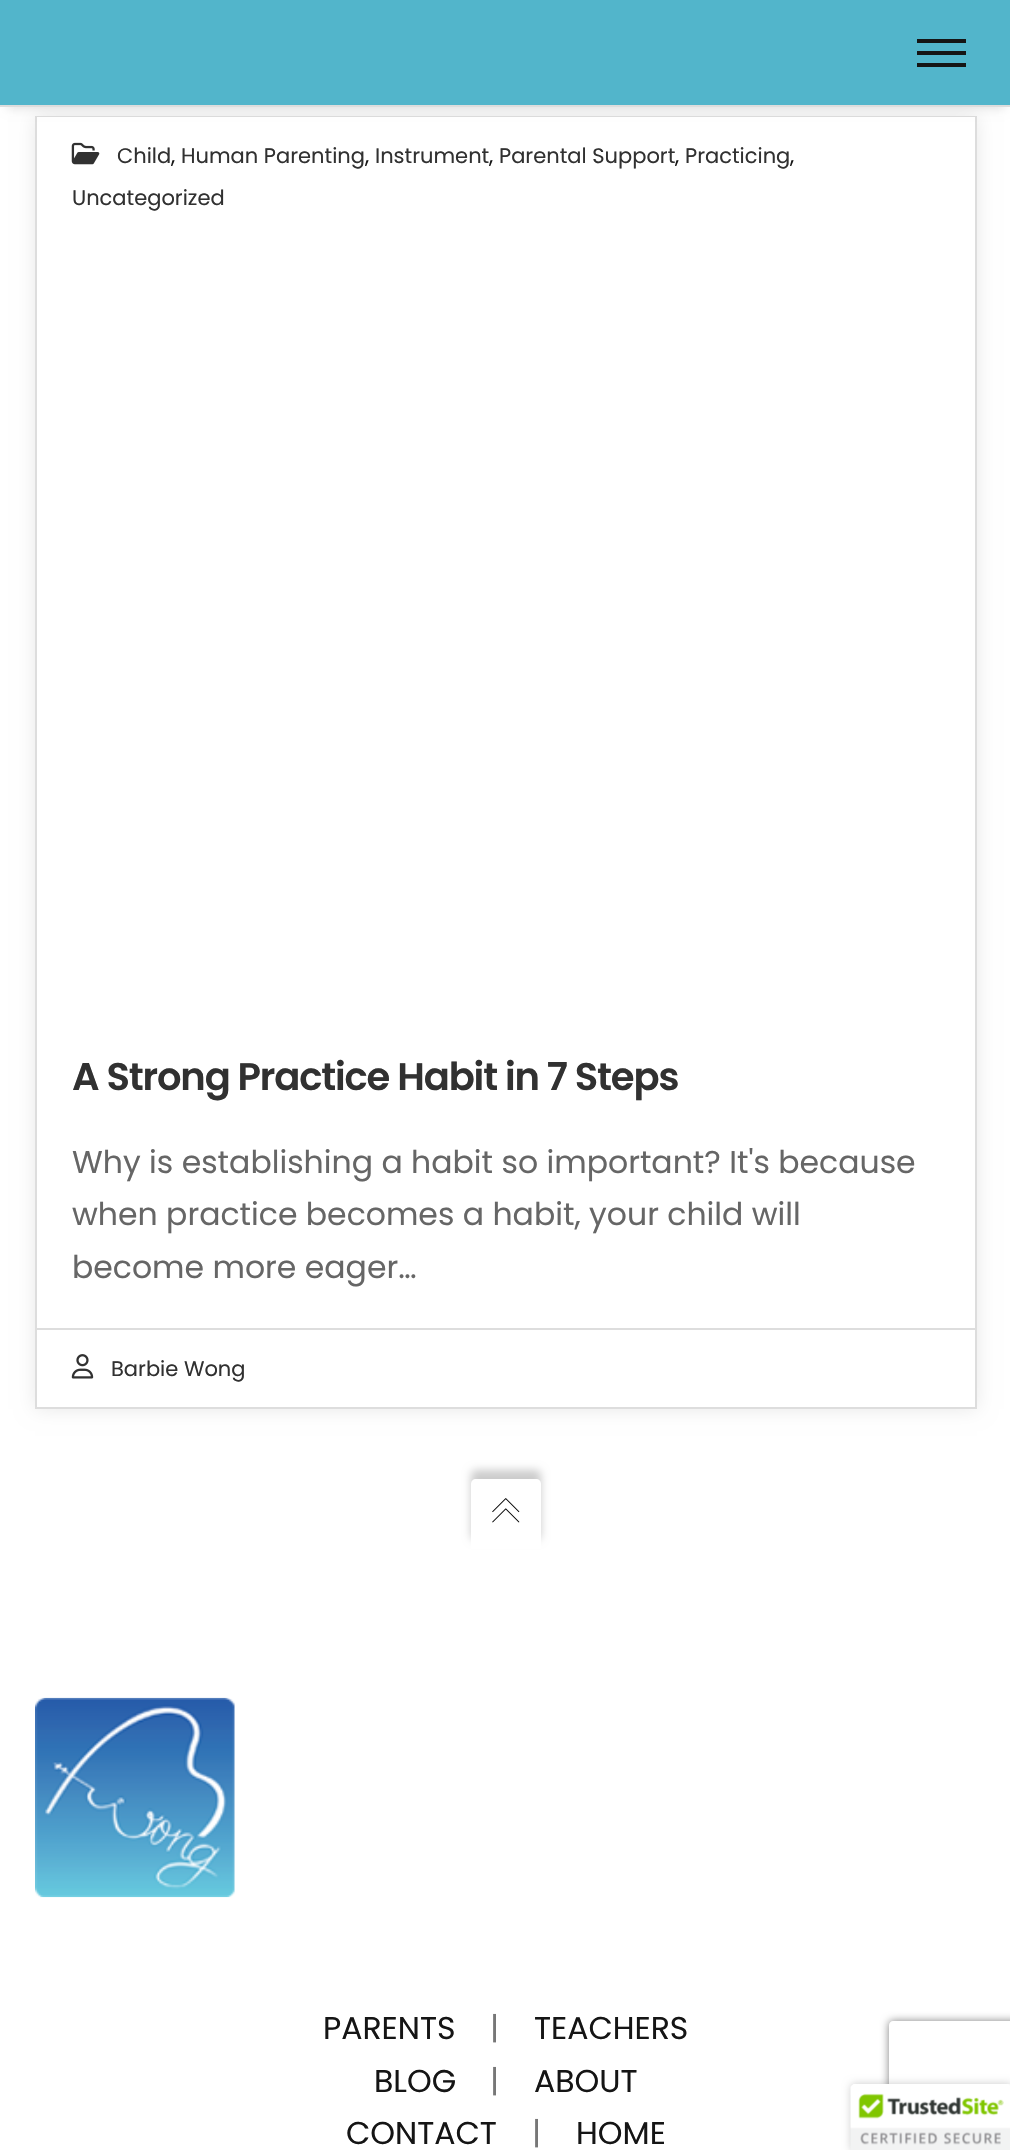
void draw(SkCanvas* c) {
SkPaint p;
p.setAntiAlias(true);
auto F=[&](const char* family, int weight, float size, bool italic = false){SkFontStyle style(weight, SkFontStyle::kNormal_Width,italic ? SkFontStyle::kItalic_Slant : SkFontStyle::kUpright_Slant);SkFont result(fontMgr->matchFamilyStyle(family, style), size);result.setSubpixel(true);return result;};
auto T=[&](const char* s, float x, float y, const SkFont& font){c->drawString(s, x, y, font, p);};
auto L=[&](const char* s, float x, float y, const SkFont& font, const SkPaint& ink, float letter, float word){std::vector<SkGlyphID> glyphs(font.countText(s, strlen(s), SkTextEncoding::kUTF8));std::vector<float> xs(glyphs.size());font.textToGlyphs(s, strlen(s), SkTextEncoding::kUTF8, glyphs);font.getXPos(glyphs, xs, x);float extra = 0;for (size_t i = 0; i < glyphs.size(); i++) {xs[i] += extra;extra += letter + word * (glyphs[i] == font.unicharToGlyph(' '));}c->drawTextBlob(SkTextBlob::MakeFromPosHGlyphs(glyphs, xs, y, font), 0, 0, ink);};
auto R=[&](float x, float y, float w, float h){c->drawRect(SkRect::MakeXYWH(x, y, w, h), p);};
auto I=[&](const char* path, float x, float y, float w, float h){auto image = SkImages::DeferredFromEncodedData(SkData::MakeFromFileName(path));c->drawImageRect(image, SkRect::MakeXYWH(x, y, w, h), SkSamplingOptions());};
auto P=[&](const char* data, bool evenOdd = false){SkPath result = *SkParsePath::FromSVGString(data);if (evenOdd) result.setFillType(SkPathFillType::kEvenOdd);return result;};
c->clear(0xffffffff);
p.setColor(0x17000000);
p.setMaskFilter(SkMaskFilter::MakeBlur(kNormal_SkBlurStyle, 9));
c->drawRect(SkRect::MakeXYWH(35,116,942,1293),p);
p.setMaskFilter(nullptr);
p.setColor(0xffffffff);
R(37,236,938,1171);
p.setStroke(true);
p.setStrokeWidth(2);
p.setColor(0xffdddddd);
c->drawRect(SkRect::MakeXYWH(36,117,940,1291),p);
p.setStroke(false);
p.setColor(0xffffffff);
R(37,117,938,119);
p.setColor(0x1a000000);
p.setMaskFilter(SkMaskFilter::MakeBlur(kNormal_SkBlurStyle, 4.5));
c->drawRect(SkRect::MakeXYWH(7,16,998,93),p);
p.setMaskFilter(nullptr);
p.setColor(0xff52b5cb);
R(0,0,1010,105);
p.setColor(0xffdddddd);
R(0,105,1010,2);
p.setColor(0xff151515);
R(917,51,49,4);
R(917,39,49,4);
R(917,63,49,4);
I("1.png",71,142,29,23);
auto f1 = F("Poppins",400,21);
p.setColor(0xff313131);
T("Child",117,163,f1);
p.setColor(0xff151515);
T(",",171,163,f1);
p.setColor(0xff313131);
T("Human Parenting",181,163,f1);
p.setColor(0xff151515);
T(",",365,163,f1);
p.setColor(0xff313131);
T("Instrument",375,163,f1);
p.setColor(0xff151515);
T(",",489,163,f1);
p.setColor(0xff313131);
T("Parental Support",499,163,f1);
p.setColor(0xff151515);
T(",",675,163,f1);
p.setColor(0xff313131);
T("Practicing",685,163,f1);
p.setColor(0xff151515);
T(",",790,163,f1);
p.setColor(0xff313131);
T("Uncategorized",72,205,f1);
auto f2 = F("Poppins",600,38.5);
L("A Strong Practice Habit in 7 Steps",72,1090,f2,p,-1.15,0);
auto f3 = F("Poppins",400,31.5);
p.setColor(0xff666666);
T("Why is establishing a habit so important? It's because",72,1173,f3);
T("when practice becomes a habit, your child will",72,1225,f3);
T("become more eager…",72,1278,f3);
p.setColor(0xffdddddd);
R(37,1328,938,2);
I("2.png",71,1354,23,25);
p.setColor(0xff313131);
T("Barbie Wong",111,1376,f1);
p.setColor(0x33000000);
p.setMaskFilter(SkMaskFilter::MakeBlur(kNormal_SkBlurStyle, 4.5));
c->drawRoundRect(SkRect::MakeXYWH(471,1470,70,70),5,5,p);
p.setMaskFilter(nullptr);
p.setColor(0xffffffff);
c->drawPath(P("M476 1479h60c3 0 5 2 5 5v65h-70v-65c0-3 2-5 5-5z"),p);
I("3.png",492,1498,28,25);
I("4.png",35,1697,200,201);
p.setColor(0xff151515);
T("PARENTS",323,2039,f3);
p.setColor(0xff777777);
T("|",490,2039,f3);
p.setColor(0xff151515);
T("TEACHERS",534,2039,f3);
T("BLOG",374,2092,f3);
p.setColor(0xff777777);
T("|",490,2092,f3);
p.setColor(0xff151515);
T("ABOUT",534,2092,f3);
T("CONTACT",346,2144,f3);
p.setColor(0xff777777);
T("|",532,2144,f3);
p.setColor(0xff151515);
T("HOME",576,2144,f3);
c->save();
c->clipPath(P("M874 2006h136v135h-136zm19 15h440c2 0 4 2 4 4v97c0 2-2 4-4 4h-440c-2 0-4-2-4-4v-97c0-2 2-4 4-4z",true),true);
p.setColor(0xff808080);
p.setMaskFilter(SkMaskFilter::MakeBlur(kNormal_SkBlurStyle, 4.5));
c->drawRoundRect(SkRect::MakeXYWH(889,2021,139,105),4,4,p);
p.setMaskFilter(nullptr);
c->restore();
p.setColor(0x33000000);
p.setMaskFilter(SkMaskFilter::MakeBlur(kNormal_SkBlurStyle, 4.5));
c->drawRoundRect(SkRect::MakeXYWH(851,2084,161,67),4,4,p);
p.setMaskFilter(nullptr);
p.setColor(0xffffffff);
c->drawPath(P("M855 2084h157v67h-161v-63c0-2 2-4 4-4z"),p);
I("5.png",850,2084,160,66);
}
